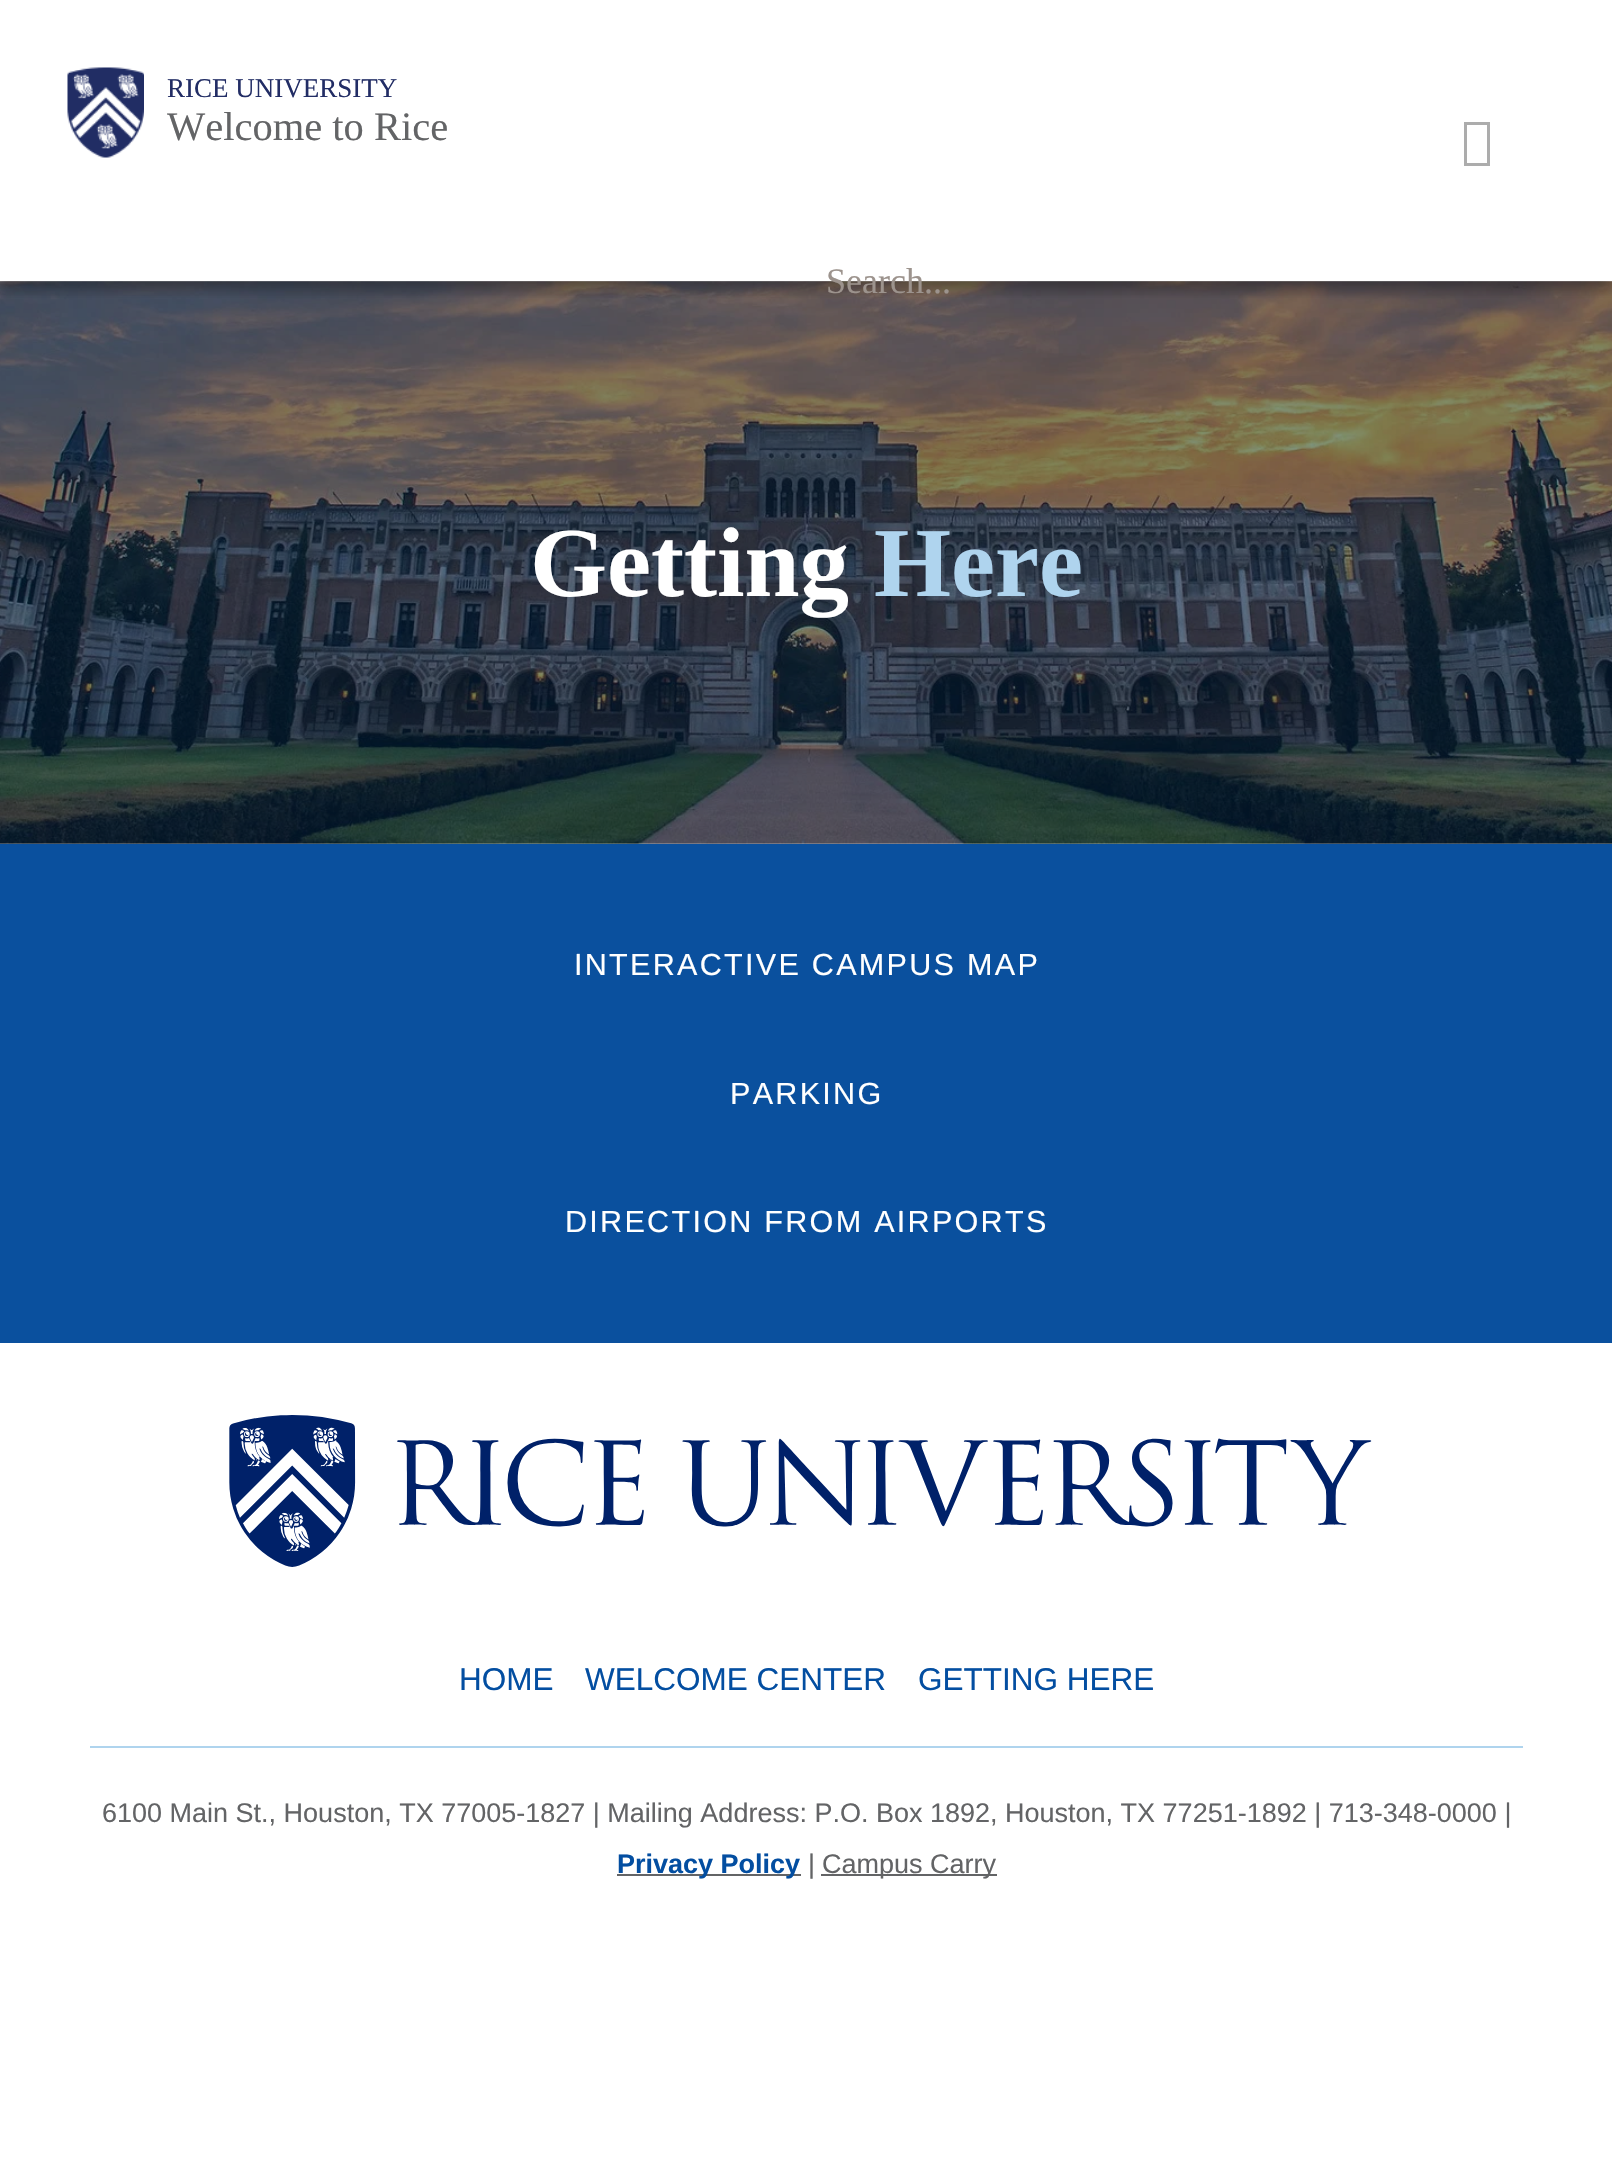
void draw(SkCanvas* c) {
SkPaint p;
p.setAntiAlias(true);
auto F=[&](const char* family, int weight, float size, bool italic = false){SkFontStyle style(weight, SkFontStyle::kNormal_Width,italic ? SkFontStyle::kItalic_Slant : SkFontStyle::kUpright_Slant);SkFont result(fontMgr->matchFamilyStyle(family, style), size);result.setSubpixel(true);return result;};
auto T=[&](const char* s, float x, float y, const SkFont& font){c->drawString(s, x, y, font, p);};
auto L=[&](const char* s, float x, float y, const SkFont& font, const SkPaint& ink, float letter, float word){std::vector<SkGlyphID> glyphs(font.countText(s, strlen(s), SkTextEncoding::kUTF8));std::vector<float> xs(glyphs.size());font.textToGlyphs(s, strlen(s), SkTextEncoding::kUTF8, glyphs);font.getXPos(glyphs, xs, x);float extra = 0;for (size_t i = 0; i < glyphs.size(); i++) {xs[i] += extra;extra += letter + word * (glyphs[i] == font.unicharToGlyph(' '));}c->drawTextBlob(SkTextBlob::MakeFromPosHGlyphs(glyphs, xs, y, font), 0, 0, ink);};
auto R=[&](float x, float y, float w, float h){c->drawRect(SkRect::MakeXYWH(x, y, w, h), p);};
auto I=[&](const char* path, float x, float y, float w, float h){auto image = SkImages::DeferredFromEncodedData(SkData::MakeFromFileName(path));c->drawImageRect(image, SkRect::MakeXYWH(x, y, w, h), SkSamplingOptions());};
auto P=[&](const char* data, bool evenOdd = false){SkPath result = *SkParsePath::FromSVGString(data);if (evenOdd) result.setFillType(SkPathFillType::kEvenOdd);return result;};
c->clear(0xffffffff);
I("2.png",0,281,1612,563);
c->save();
c->clipRect(SkRect::MakeXYWH(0,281,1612,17));
p.setColor(0x3b000000);
p.setMaskFilter(SkMaskFilter::MakeBlur(kNormal_SkBlurStyle, 7));
c->drawRect(SkRect::MakeXYWH(0,7,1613,281),p);
p.setMaskFilter(nullptr);
c->restore();
c->save();
c->clipRect(SkRect::MakeXYWH(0,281,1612,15));
p.setColor(0x29000000);
p.setMaskFilter(SkMaskFilter::MakeBlur(kNormal_SkBlurStyle, 7));
c->drawRect(SkRect::MakeXYWH(0,7,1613,281),p);
p.setMaskFilter(nullptr);
c->restore();
I("1.png",67,67,77,91);
auto f1 = F("Liberation Serif",400,27);
p.setColor(0xff222d65);
T("RICE UNIVERSITY",167,97,f1);
auto f2 = F("Liberation Serif",400,40.5);
p.setColor(0xff636466);
T("Welcome to Rice",167,140,f2);
p.setColor(0xffacacac);
c->drawPath(P("M1464 166v-44h26v44zm3-3h20v-38h-20z"),p);
auto f3 = F("Liberation Serif",400,36);
p.setColor(0xff9c938d);
T("Search...",826,293,f3);
auto f4 = F("Liberation Serif",700,99);
p.setColor(0xffffffff);
T("Getting",530,596,f4);
p.setColor(0xffafd4ee);
T("Here",874,596,f4);
p.setColor(0xff0a509e);
R(0,844,1612,499);
auto f5 = F("Liberation Sans",400,30.6);
p.setColor(0xffffffff);
L("INTERACTIVE CAMPUS MAP",574,975,f5,p,2.25,0);
L("PARKING",730,1104,f5,p,2.25,0);
L("DIRECTION FROM AIRPORTS",565,1232,f5,p,2.25,0);
I("3.png",229,1415,1143,152);
auto f6 = F("Liberation Sans",400,31.5);
p.setColor(0xff034ea1);
T("HOME",459,1690,f6);
T("WELCOME CENTER",585,1690,f6);
T("GETTING HERE",918,1690,f6);
p.setColor(0xffafd4ee);
R(90,1746,1433,2);
auto f7 = F("Liberation Sans",400,27);
p.setColor(0xff636466);
T("6100 Main St., Houston, TX 77005-1827 | Mailing Address: P.O. Box 1892, Houston, TX 77251-1892 | 713-348-0000 |",102,1822,f7);
R(617,1874,184,2);
auto f8 = F("Liberation Sans",700,27);
p.setColor(0xff034ea1);
T("Privacy Policy",617,1873,f8);
p.setColor(0xff636466);
T("|",808,1873,f7);
R(821,1874,176,2);
T("Campus Carry",822,1873,f7);
}
